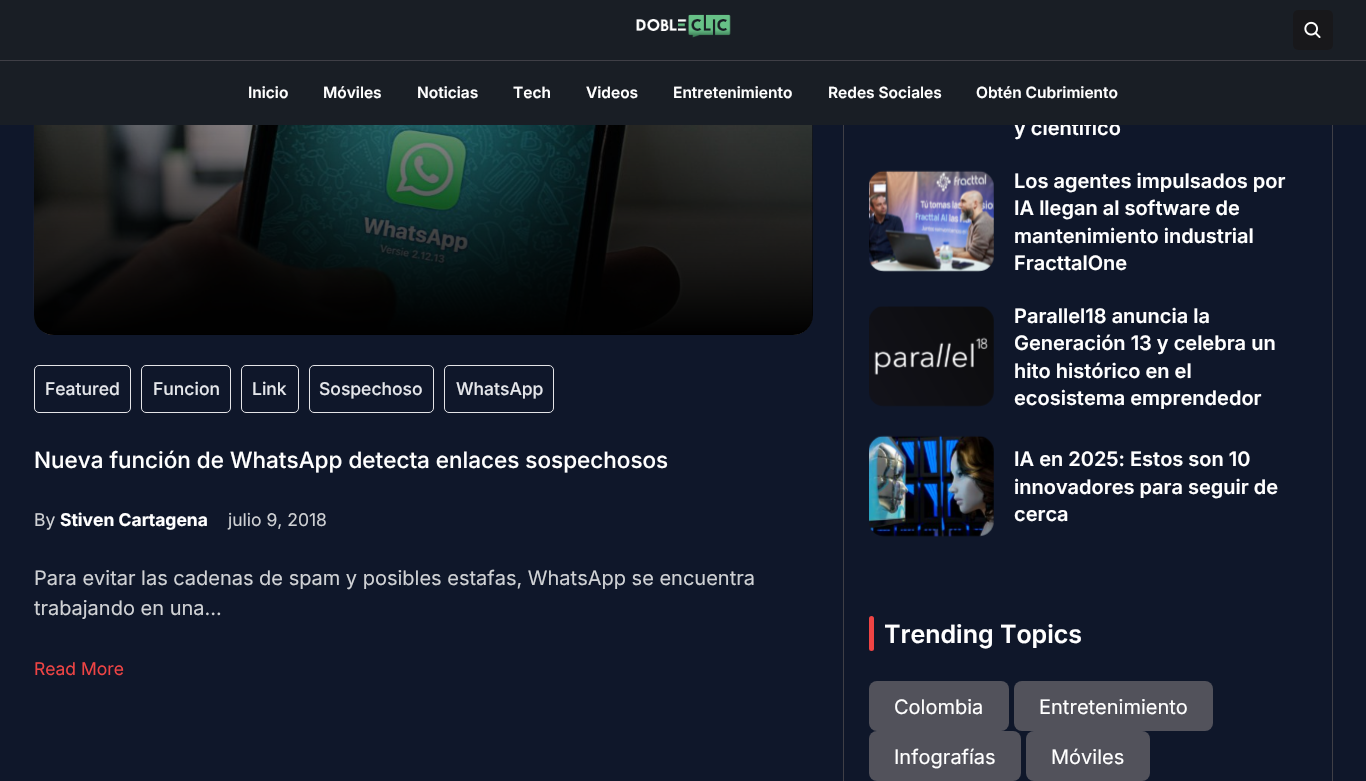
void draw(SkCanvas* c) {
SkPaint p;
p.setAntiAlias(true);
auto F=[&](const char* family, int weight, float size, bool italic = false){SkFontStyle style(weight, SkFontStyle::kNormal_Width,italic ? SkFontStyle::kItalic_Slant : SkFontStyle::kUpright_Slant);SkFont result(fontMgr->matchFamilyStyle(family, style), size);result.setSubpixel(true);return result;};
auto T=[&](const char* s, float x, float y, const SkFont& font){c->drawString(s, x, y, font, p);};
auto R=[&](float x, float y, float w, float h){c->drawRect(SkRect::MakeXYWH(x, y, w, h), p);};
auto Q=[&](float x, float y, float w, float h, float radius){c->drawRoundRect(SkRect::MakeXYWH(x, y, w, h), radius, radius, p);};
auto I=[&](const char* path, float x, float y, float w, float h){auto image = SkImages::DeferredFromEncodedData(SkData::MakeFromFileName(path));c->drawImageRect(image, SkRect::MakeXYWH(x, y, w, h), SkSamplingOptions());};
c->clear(0xff0f172a);
I("3.png",33,125,780,210);
{
const SkColor colors[] = {0xff000000,0x00000000};
const float stops[] = {0,1};
const SkPoint ends[] = {{423,335}, {423,-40}};
p.setShader(SkGradientShader::MakeLinear(ends, colors, stops, 2, SkTileMode::kClamp));
p.setAlpha(255);
}
Q(34,-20,779,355,20);
p.setStroke(true);
p.setStrokeWidth(1);
p.setShader(nullptr);
p.setColor(0xff3f3f46);
c->drawRect(SkRect::MakeXYWH(843.5,-.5,489,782),p);
auto f1 = F("Inter",600,20);
p.setStroke(false);
p.setColor(0xffffffff);
T("y científico",1014,135,f1);
p.setColor(0xff191e25);
R(0,0,1366,125);
p.setColor(0xff3f3f46);
R(0,60,1366,1);
I("1.png",636,14,95,24);
p.setColor(0xff18181b);
Q(1293,10,40,40,5);
I("2.png",1304,21,17,17);
auto f2 = F("Inter",600,15.5);
p.setColor(0xffffffff);
T("Inicio",248,98,f2);
T("Móviles",323,98,f2);
T("Noticias",417,98,f2);
T("Tech",513,98,f2);
T("Videos",586,98,f2);
T("Entretenimiento",673,98,f2);
T("Redes Sociales",828,98,f2);
T("Obtén Cubrimiento",976,98,f2);
p.setStroke(true);
p.setColor(0xffe4e4e7);
c->drawRoundRect(SkRect::MakeXYWH(34.5,365.5,96,47),4.5,4.5,p);
auto f3 = F("Inter",500,17.5);
p.setStroke(false);
p.setColor(0xffe5e7eb);
T("Featured",45,395,f3);
p.setStroke(true);
p.setColor(0xffe4e4e7);
c->drawRoundRect(SkRect::MakeXYWH(141.5,365.5,89,47),4.5,4.5,p);
p.setStroke(false);
p.setColor(0xffe5e7eb);
T("Funcion",153,395,f3);
p.setStroke(true);
p.setColor(0xffe4e4e7);
c->drawRoundRect(SkRect::MakeXYWH(241.5,365.5,57,47),4.5,4.5,p);
p.setStroke(false);
p.setColor(0xffe5e7eb);
T("Link",252,395,f3);
p.setStroke(true);
p.setColor(0xffe4e4e7);
c->drawRoundRect(SkRect::MakeXYWH(309.5,365.5,124,47),4.5,4.5,p);
p.setStroke(false);
p.setColor(0xffe5e7eb);
T("Sospechoso",319,395,f3);
p.setStroke(true);
p.setColor(0xffe4e4e7);
c->drawRoundRect(SkRect::MakeXYWH(444.5,365.5,109,47),4.5,4.5,p);
p.setStroke(false);
p.setColor(0xffe5e7eb);
T("WhatsApp",456,395,f3);
auto f4 = F("Inter",500,22.5);
p.setColor(0xffffffff);
T("Nueva función de WhatsApp detecta enlaces sospechosos",34,468,f4);
auto f5 = F("Inter",400,17.5);
p.setColor(0xffcfd1d4);
T("By",34,526,f5);
auto f6 = F("Inter",700,17.5);
p.setColor(0xffffffff);
T("Stiven Cartagena",60,526,f6);
p.setColor(0xffcfd1d4);
T("julio 9, 2018",228,526,f5);
auto f7 = F("Inter",400,20);
T("Para evitar las cadenas de spam y posibles estafas, WhatsApp se encuentra",34,585,f7);
T("trabajando en una...",34,615,f7);
p.setColor(0xffef4444);
T("Read More",34,675,f5);
I("4.png",869,170,125,102);
p.setColor(0xffffffff);
T("Los agentes impulsados por",1014,188,f1);
T("IA llegan al software de",1014,215,f1);
T("mantenimiento industrial",1014,243,f1);
T("FracttalOne",1014,270,f1);
I("5.png",869,306,125,101);
T("Parallel18 anuncia la",1014,323,f1);
T("Generación 13 y celebra un",1014,350,f1);
T("hito histórico en el",1014,378,f1);
T("ecosistema emprendedor",1014,405,f1);
I("6.png",869,435,125,102);
T("IA en 2025: Estos son 10",1014,466,f1);
T("innovadores para seguir de",1014,494,f1);
T("cerca",1014,521,f1);
p.setColor(0xffef4444);
Q(869,616,5,35,2.5);
auto f8 = F("Inter",600,25);
p.setColor(0xffffffff);
T("Trending Topics",884,643,f8);
p.setColor(0xff52525b);
Q(869,681,140,50,8);
p.setColor(0xffffffff);
T("Colombia",894,714,f7);
p.setColor(0xff52525b);
Q(1014,681,199,50,8);
p.setColor(0xffffffff);
T("Entretenimiento",1039,714,f7);
p.setColor(0xff52525b);
Q(869,731,152,50,8);
p.setColor(0xffffffff);
T("Infografías",894,764,f7);
p.setColor(0xff52525b);
Q(1026,731,124,50,8);
p.setColor(0xffffffff);
T("Móviles",1051,764,f7);
}
